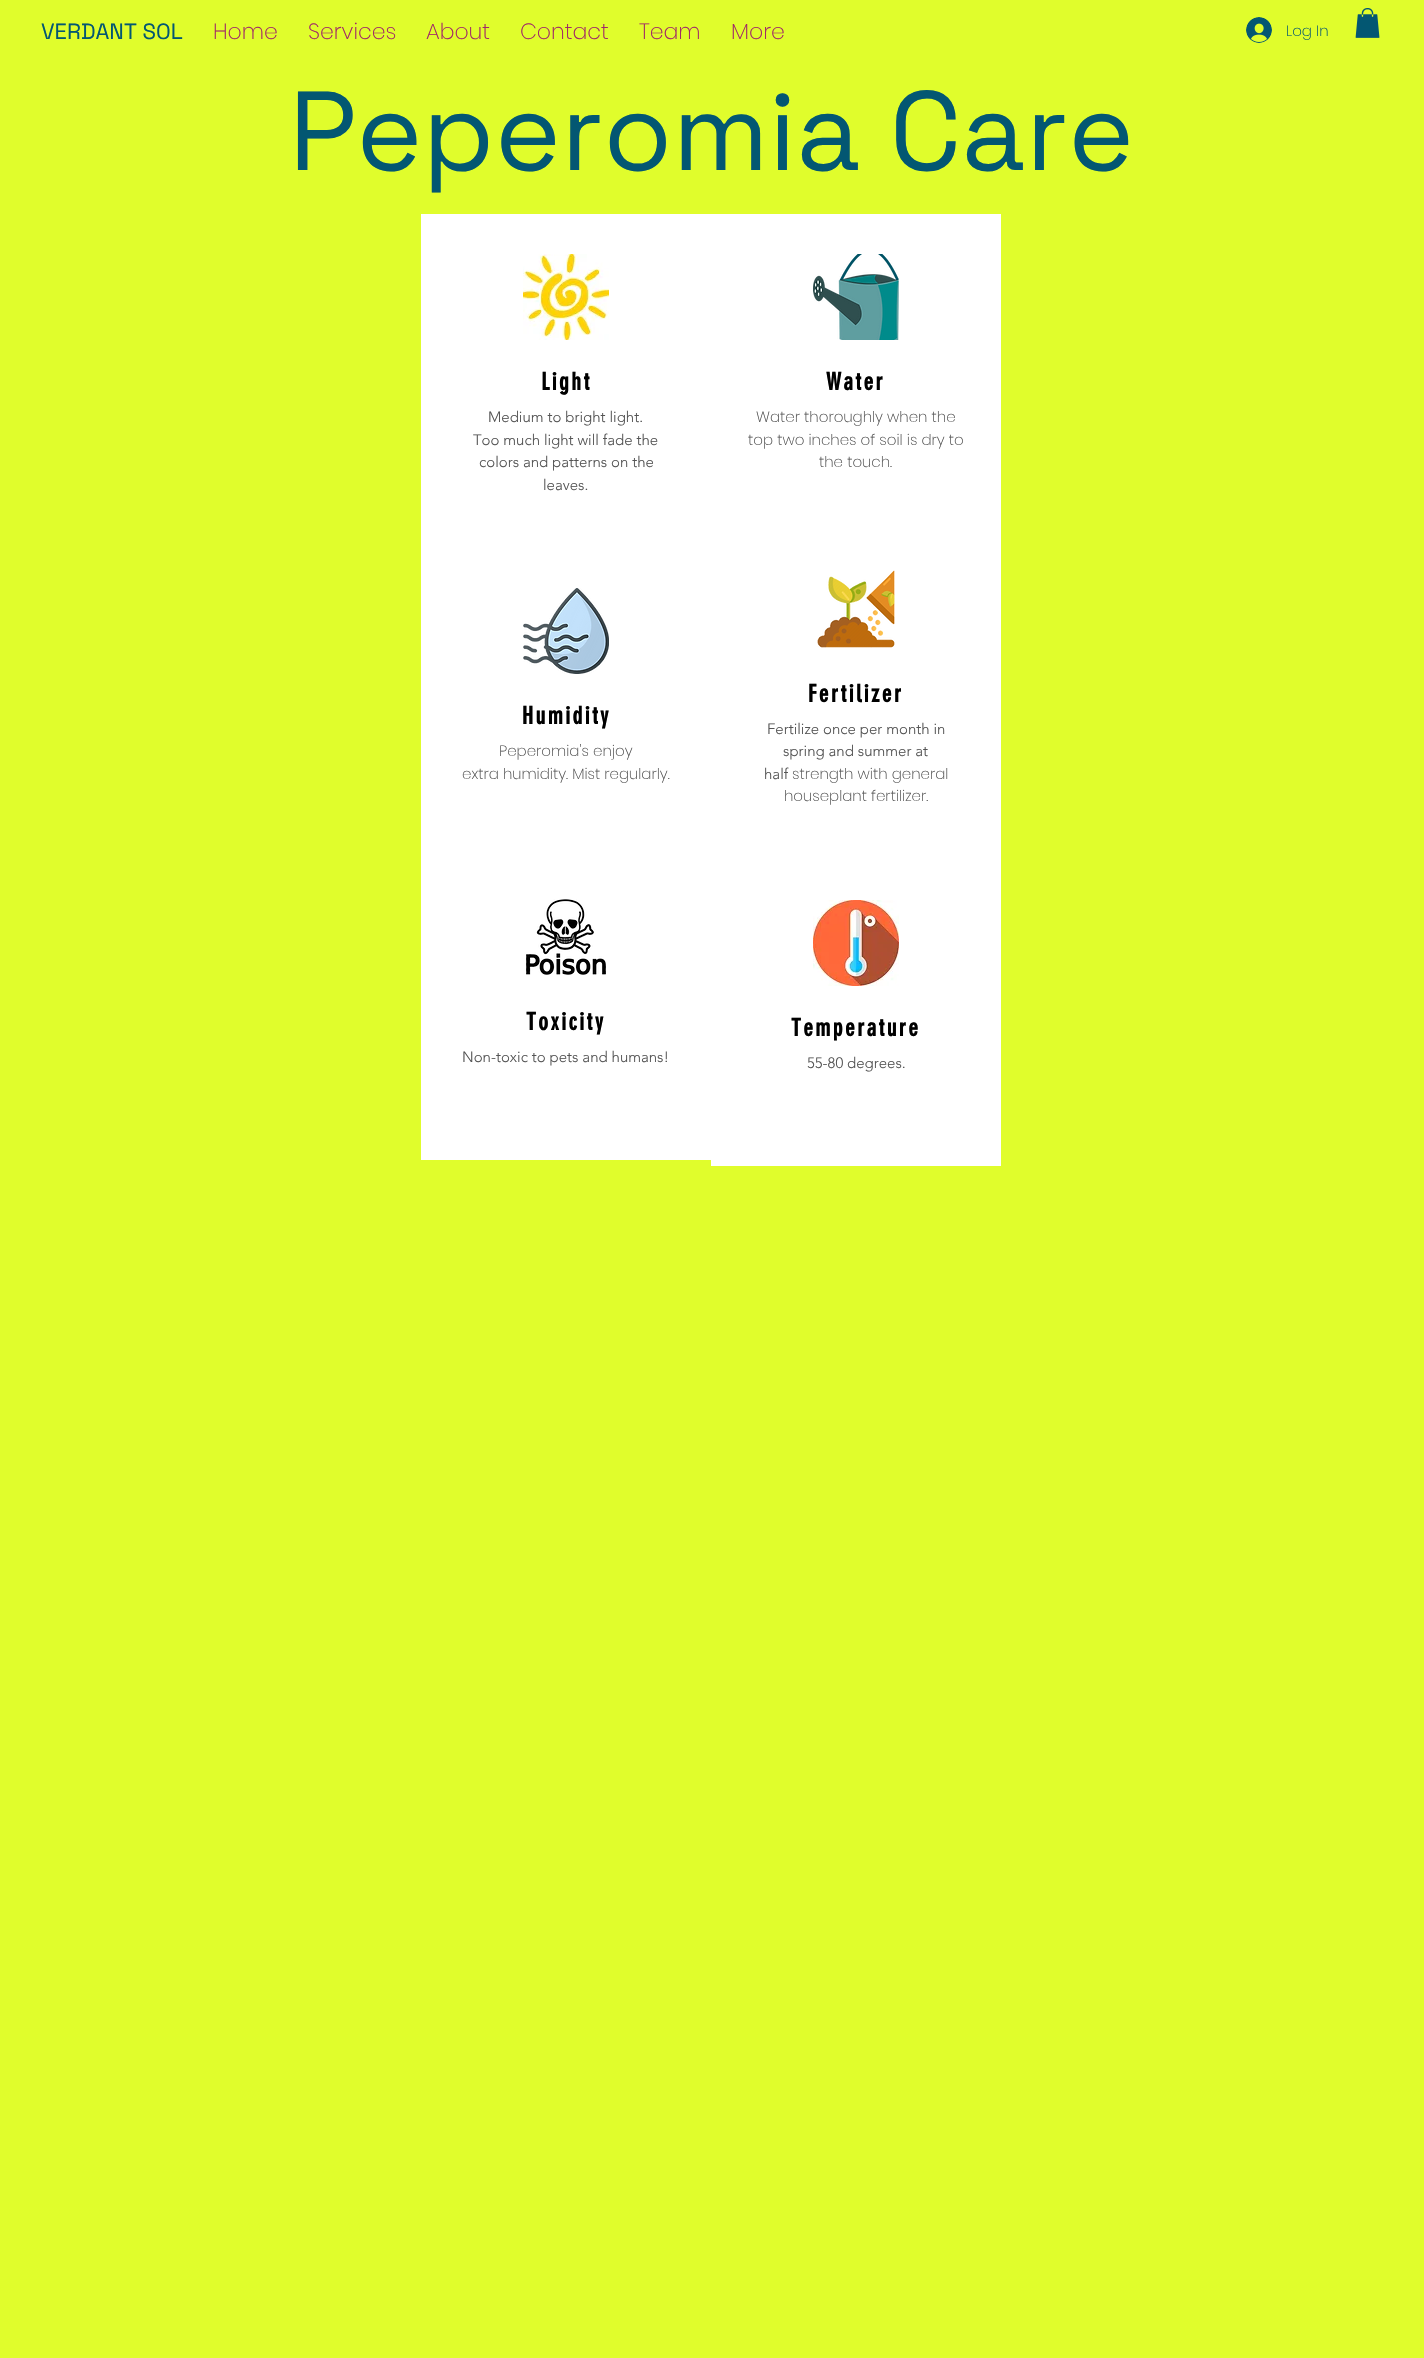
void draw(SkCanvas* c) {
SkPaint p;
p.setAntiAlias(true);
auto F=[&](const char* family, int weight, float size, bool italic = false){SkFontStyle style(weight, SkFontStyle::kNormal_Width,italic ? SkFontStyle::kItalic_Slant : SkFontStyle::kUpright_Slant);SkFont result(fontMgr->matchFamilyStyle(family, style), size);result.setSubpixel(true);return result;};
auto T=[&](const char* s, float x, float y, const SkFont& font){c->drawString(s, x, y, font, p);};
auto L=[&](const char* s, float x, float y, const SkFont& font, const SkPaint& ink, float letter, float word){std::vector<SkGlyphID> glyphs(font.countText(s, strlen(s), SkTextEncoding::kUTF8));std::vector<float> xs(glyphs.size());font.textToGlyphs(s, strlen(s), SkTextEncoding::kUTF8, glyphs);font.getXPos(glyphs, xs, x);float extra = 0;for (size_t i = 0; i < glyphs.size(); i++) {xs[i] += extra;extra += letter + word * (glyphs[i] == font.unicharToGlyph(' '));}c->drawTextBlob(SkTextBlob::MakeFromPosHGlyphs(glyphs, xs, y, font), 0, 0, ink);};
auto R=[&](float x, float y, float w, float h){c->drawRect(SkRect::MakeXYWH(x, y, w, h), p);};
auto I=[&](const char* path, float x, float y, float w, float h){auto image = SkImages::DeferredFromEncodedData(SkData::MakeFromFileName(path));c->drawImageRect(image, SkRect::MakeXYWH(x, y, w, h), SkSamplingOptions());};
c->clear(0xffe0fd2c);
auto f1 = F("Space Grotesk",400,22);
p.setColor(0xff035772);
T("VERDANT SOL",41,39,f1);
auto f2 = F("Poppins",200,22);
p.setColor(0xffa12767);
T("Home",213,39,f2);
T("Services",308,39,f2);
T("About",426,39,f2);
T("Contact",520,39,f2);
T("Team",639,39,f2);
T("More",731,39,f2);
I("1.png",1246,17,26,26);
auto f3 = F("Poppins",200,15);
p.setColor(0xff035772);
T("Log In",1286,36,f3);
I("2.png",1355,8,25,30);
auto f4 = F("Space Grotesk",400,112);
T("Peperomia Care",289,170,f4);
p.setColor(0xffffffff);
R(421,214,290,946);
I("3.png",523,254,86,86);
auto f5 = F("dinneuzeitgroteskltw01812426",700,24);
p.setColor(0xff000000);
L("Light",541,390,f5,p,2.4,0);
auto f6 = F("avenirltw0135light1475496",300,15);
p.setColor(0xff545454);
T("Medium to bright light.",488,422,f6);
T("Too much light will fade the",473,445,f6);
T("colors and patterns on the",479,467,f6);
T("leaves.",543,490,f6);
I("4.png",523,588,86,86);
p.setColor(0xff000000);
L("Humidity",522,724,f5,p,2.4,0);
p.setColor(0xff545454);
T("Peperomia's enjoy",499,756,f3);
T("extra humidity. Mist regularly.",462,779,f3);
I("5.png",526,899,80,76);
p.setColor(0xff000000);
L("Toxicity",526,1030,f5,p,2.4,0);
p.setColor(0xff545454);
T("Non-toxic to pets and humans!",462,1062,f6);
p.setColor(0xffffffff);
R(711,214,290,952);
I("6.png",813,254,86,86);
p.setColor(0xff000000);
L("Water",826,390,f5,p,2.4,0);
p.setColor(0xff545454);
T("Water thoroughly when the",756,422,f3);
T("top two inches of soil is dry to",748,445,f3);
T("the touch.",819,467,f3);
I("7.png",817,570,78,78);
p.setColor(0xff000000);
L("Fertilizer",808,702,f5,p,2.4,0);
p.setColor(0xff545454);
T("Fertilize once per month in",767,734,f6);
T("spring and summer at",783,756,f6);
T("half",764,779,f6);
T("strength with general",792,779,f3);
T("houseplant fertilizer.",784,801,f3);
I("8.png",813,900,86,86);
p.setColor(0xff000000);
L("Temperature",791,1036,f5,p,2.4,0);
p.setColor(0xff545454);
T("55-80 degrees.",807,1068,f6);
}
